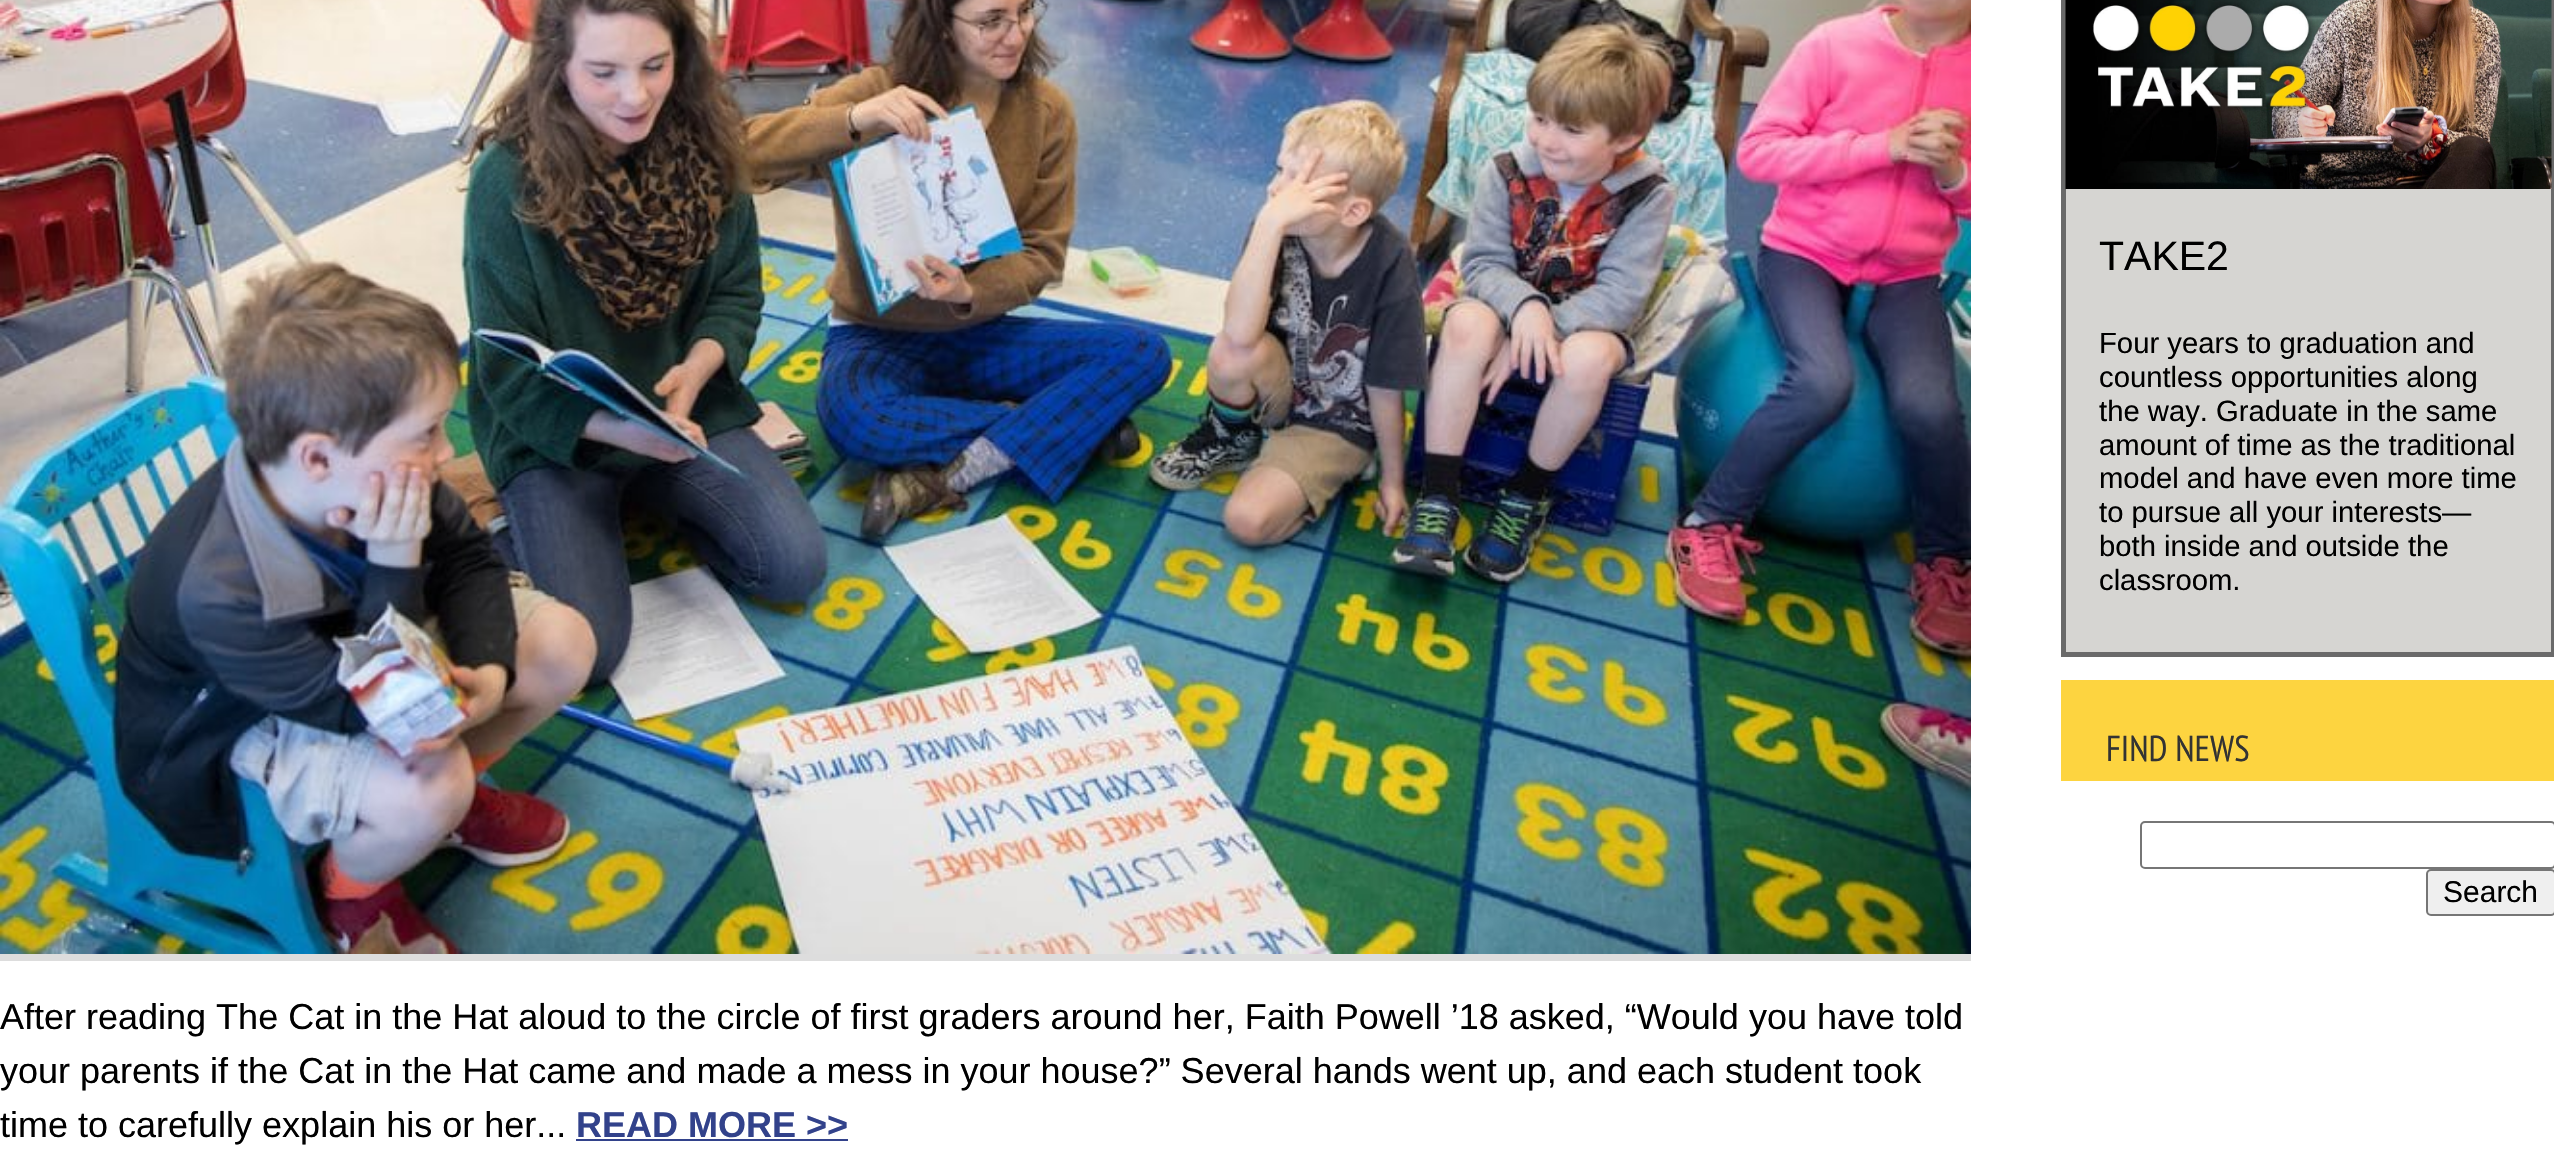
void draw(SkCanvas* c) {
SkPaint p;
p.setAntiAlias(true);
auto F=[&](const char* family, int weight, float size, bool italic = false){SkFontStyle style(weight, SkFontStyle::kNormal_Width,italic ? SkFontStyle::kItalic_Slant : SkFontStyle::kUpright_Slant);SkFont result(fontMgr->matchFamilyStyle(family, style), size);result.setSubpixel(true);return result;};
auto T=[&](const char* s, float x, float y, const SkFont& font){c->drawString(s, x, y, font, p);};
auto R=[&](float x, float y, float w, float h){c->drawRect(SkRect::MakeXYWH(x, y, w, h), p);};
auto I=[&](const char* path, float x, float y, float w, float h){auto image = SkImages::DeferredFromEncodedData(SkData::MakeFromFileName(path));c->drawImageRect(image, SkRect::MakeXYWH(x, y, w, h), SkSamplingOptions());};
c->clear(0xffffffff);
p.setColor(0xffd6d5d2);
R(2066,189,485,463);
p.setStroke(true);
p.setStrokeWidth(5);
p.setColor(0xff6a6a6a);
c->drawRect(SkRect::MakeXYWH(2063.5,-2.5,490,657),p);
I("1.png",2065,0,487,189);
auto f1 = F("Liberation Sans",400,41);
p.setStroke(false);
p.setColor(0xff000000);
T("TAKE2",2099,270,f1);
auto f2 = F("Liberation Sans",400,29.25);
T("Four years to graduation and",2099,353,f2);
T("countless opportunities along",2099,387,f2);
T("the way. Graduate in the same",2099,421,f2);
T("amount of time as the traditional",2099,455,f2);
T("model and have even more time",2099,488,f2);
T("to pursue all your interests—",2099,522,f2);
T("both inside and outside the",2099,556,f2);
T("classroom.",2099,590,f2);
p.setColor(0xfffdd440);
R(2061,680,493,101);
auto f3 = F("PT Sans Narrow",400,36);
p.setColor(0xff333333);
T("FIND NEWS",2106,761,f3);
p.setStroke(true);
p.setStrokeWidth(2);
p.setColor(0xff767676);
c->drawRoundRect(SkRect::MakeXYWH(2141,822,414,46),4,4,p);
p.setStroke(false);
p.setColor(0xffefefef);
c->drawRoundRect(SkRect::MakeXYWH(2427,870,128,45),4,4,p);
p.setStroke(true);
p.setColor(0xff767676);
c->drawRoundRect(SkRect::MakeXYWH(2427,870,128,45),4,4,p);
auto f4 = F("Liberation Sans",400,30);
p.setStroke(false);
p.setColor(0xff000000);
T("Search",2443,902,f4);
I("2.png",0,0,1971,954);
p.setColor(0xffdddddd);
R(0,954,1971,7);
auto f5 = F("Liberation Sans",400,36);
p.setColor(0xff000000);
T("After reading The Cat in the Hat aloud to the circle of first graders around her, Faith Powell ’18 asked, “Would you have told",0,1029,f5);
T("your parents if the Cat in the Hat came and made a mess in your house?” Several hands went up, and each student took",0,1083,f5);
T("time to carefully explain his or her...",0,1137,f5);
auto f6 = F("Liberation Sans",700,36);
p.setColor(0xff32428b);
T("READ MORE >>",576,1137,f6);
R(576,1139,272,2);
}
